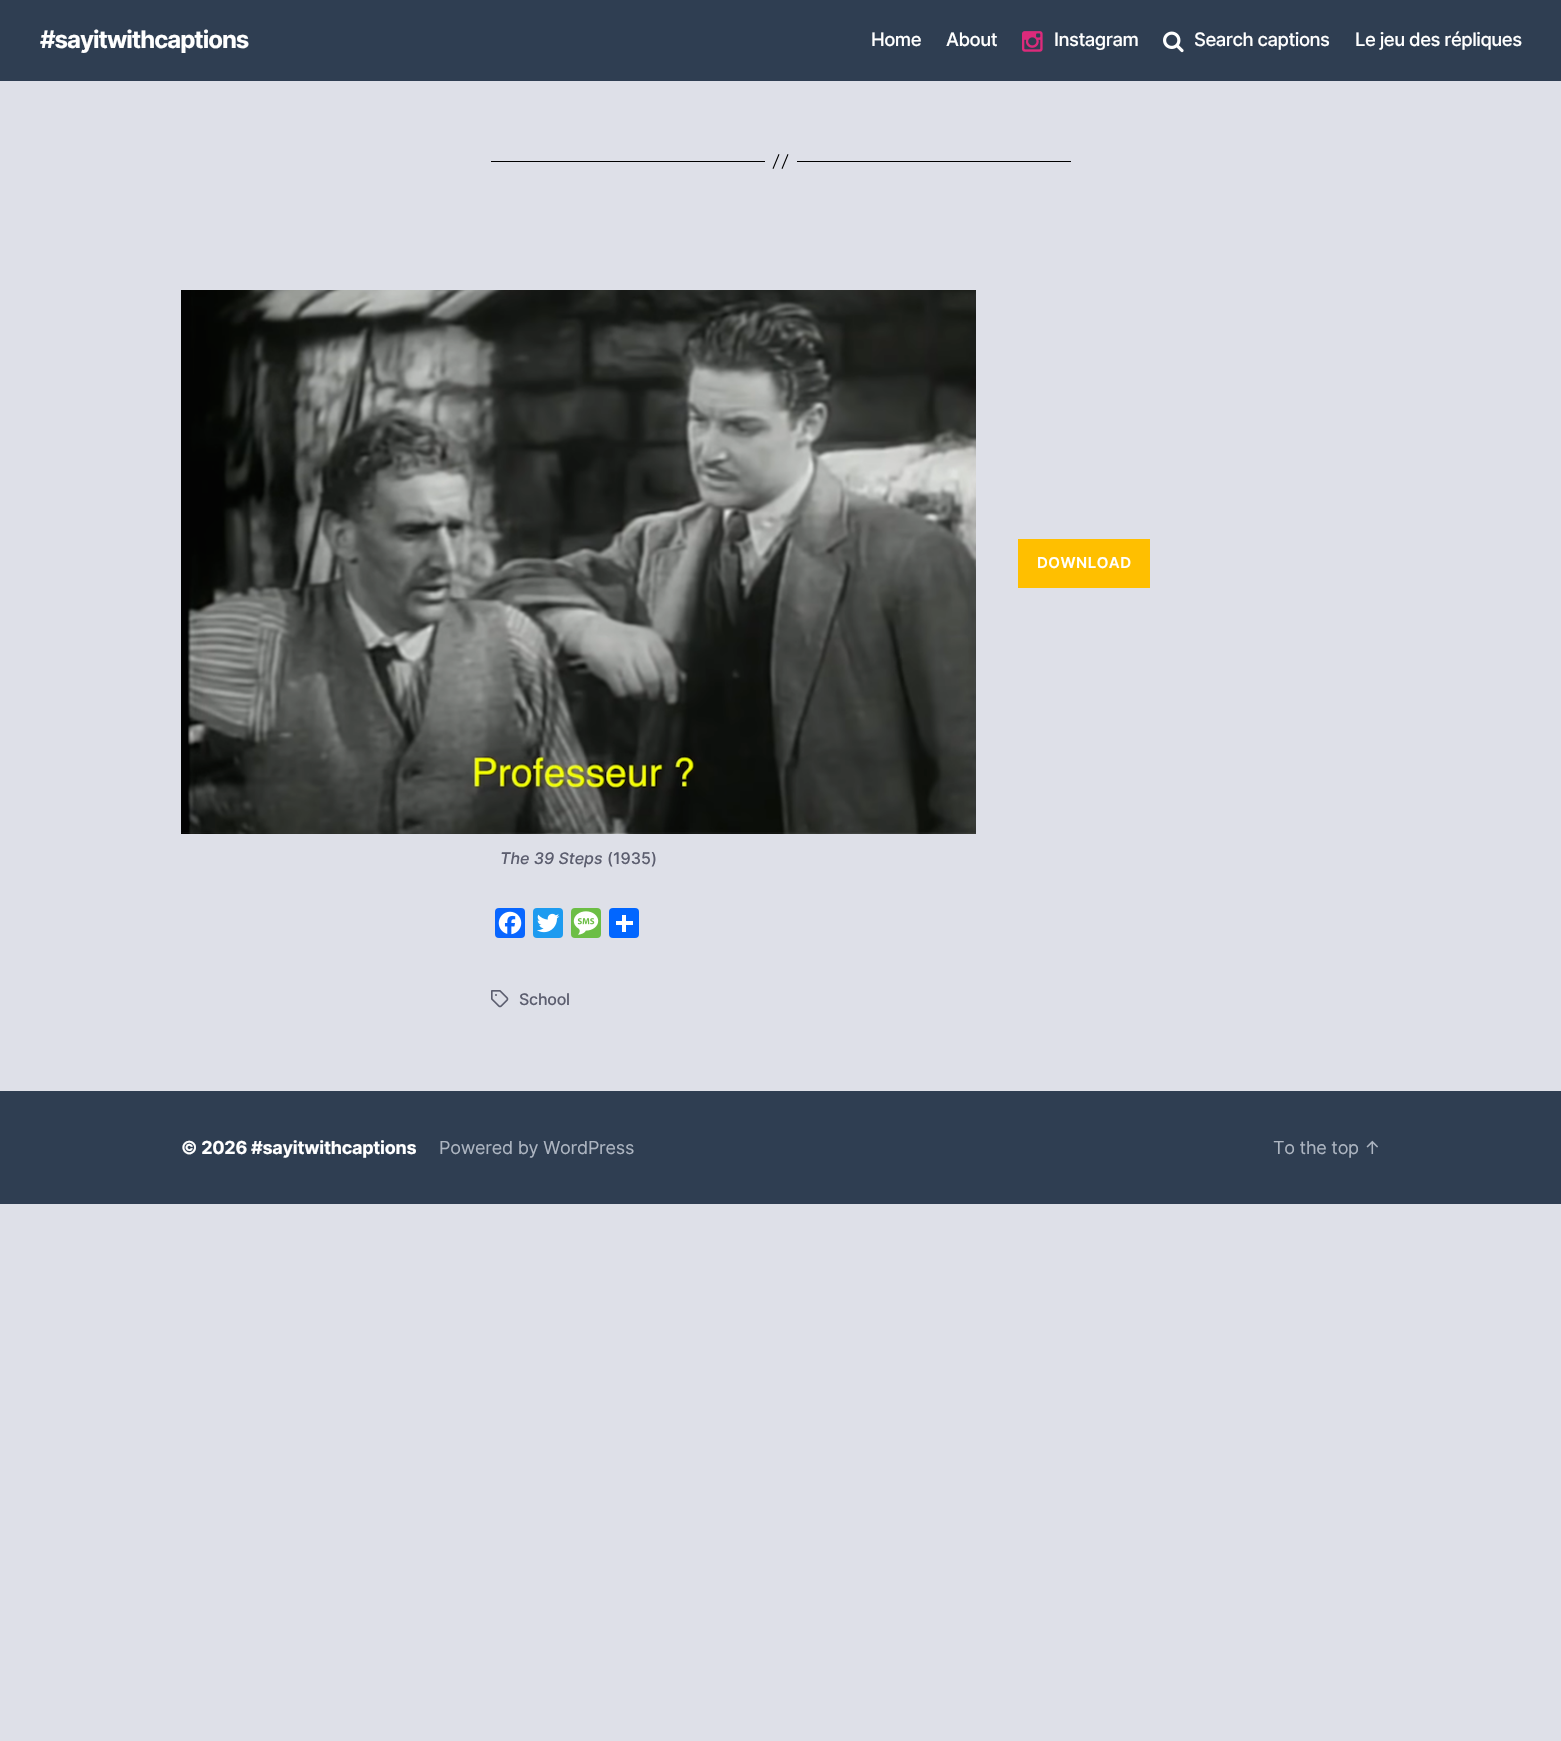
void draw(SkCanvas* c) {
SkPaint p;
p.setAntiAlias(true);
auto F=[&](const char* family, int weight, float size, bool italic = false){SkFontStyle style(weight, SkFontStyle::kNormal_Width,italic ? SkFontStyle::kItalic_Slant : SkFontStyle::kUpright_Slant);SkFont result(fontMgr->matchFamilyStyle(family, style), size);result.setSubpixel(true);return result;};
auto T=[&](const char* s, float x, float y, const SkFont& font){c->drawString(s, x, y, font, p);};
auto L=[&](const char* s, float x, float y, const SkFont& font, const SkPaint& ink, float letter, float word){std::vector<SkGlyphID> glyphs(font.countText(s, strlen(s), SkTextEncoding::kUTF8));std::vector<float> xs(glyphs.size());font.textToGlyphs(s, strlen(s), SkTextEncoding::kUTF8, glyphs);font.getXPos(glyphs, xs, x);float extra = 0;for (size_t i = 0; i < glyphs.size(); i++) {xs[i] += extra;extra += letter + word * (glyphs[i] == font.unicharToGlyph(' '));}c->drawTextBlob(SkTextBlob::MakeFromPosHGlyphs(glyphs, xs, y, font), 0, 0, ink);};
auto R=[&](float x, float y, float w, float h){c->drawRect(SkRect::MakeXYWH(x, y, w, h), p);};
auto Q=[&](float x, float y, float w, float h, float radius){c->drawRoundRect(SkRect::MakeXYWH(x, y, w, h), radius, radius, p);};
auto I=[&](const char* path, float x, float y, float w, float h){auto image = SkImages::DeferredFromEncodedData(SkData::MakeFromFileName(path));c->drawImageRect(image, SkRect::MakeXYWH(x, y, w, h), SkSamplingOptions());};
auto P=[&](const char* data, bool evenOdd = false){SkPath result = *SkParsePath::FromSVGString(data);if (evenOdd) result.setFillType(SkPathFillType::kEvenOdd);return result;};
c->clear(0xffdee0e8);
p.setColor(0xff2f3e52);
R(0,0,1561,81);
auto f1 = F("Inter",700,24);
p.setColor(0xffffffff);
L("#sayitwithcaptions",40,48,f1,p,-1,0);
auto f2 = F("Inter",500,18.5);
L("Home",871,46,f2,p,-.5,0);
L("About",946,46,f2,p,-.5,0);
I("1.png",1022,31,21,21);
L("Instagram",1054,46,f2,p,-.5,0);
I("2.png",1163,31,21,22);
L("Search captions",1194,46,f2,p,-.5,0);
L("Le jeu des répliques",1355,46,f2,p,-.5,0);
p.setColor(0xff000000);
R(797,161,274,1);
R(491,161,274,1);
c->drawPath(P("M778.5 154l1 .5l-6 14.5l-1-.5zm9 0l1 .5l-6 14.5l-1-.5z"),p);
p.setColor(0xffffbf00);
R(1018,539,132,49);
auto f3 = F("Inter",600,15);
p.setColor(0xffffffff);
L("DOWNLOAD",1037,568,f3,p,.5,0);
I("3.png",181,290,795,544);
auto f4 = F("Inter",500,16,true);
p.setColor(0xff5c5e6f);
T("The 39 Steps",500,864,f4);
auto f5 = F("Inter",500,16);
T("(1935)",607,864,f5);
p.setColor(0xff0866ff);
Q(495,908,30,30,4);
I("4.png",498,911,24,24);
p.setColor(0xff1d9bf0);
Q(533,908,30,30,4);
I("5.png",537,913,23,20);
p.setColor(0xff6cbe45);
Q(571,908,30,30,4);
I("6.png",573,911,26,24);
p.setColor(0xff0166ff);
Q(609,908,30,30,4);
p.setColor(0xffffffff);
R(622,915,4,17);
R(616,921,17,4);
I("7.png",491,990,18,18);
p.setColor(0xff5c5e6f);
L("School",519,1005,f5,p,-.25,0);
p.setColor(0xff2f3e52);
R(0,1091,1561,113);
auto f6 = F("Inter",700,18);
p.setColor(0xffffffff);
L("© 2026 #sayitwithcaptions",181,1154,f6,p,-.25,0);
auto f7 = F("Inter",400,18);
p.setColor(0xffadb5c1);
L("Powered by WordPress",439,1154,f7,p,-.25,0);
L("To the top ↑",1273,1154,f7,p,-.25,0);
}
